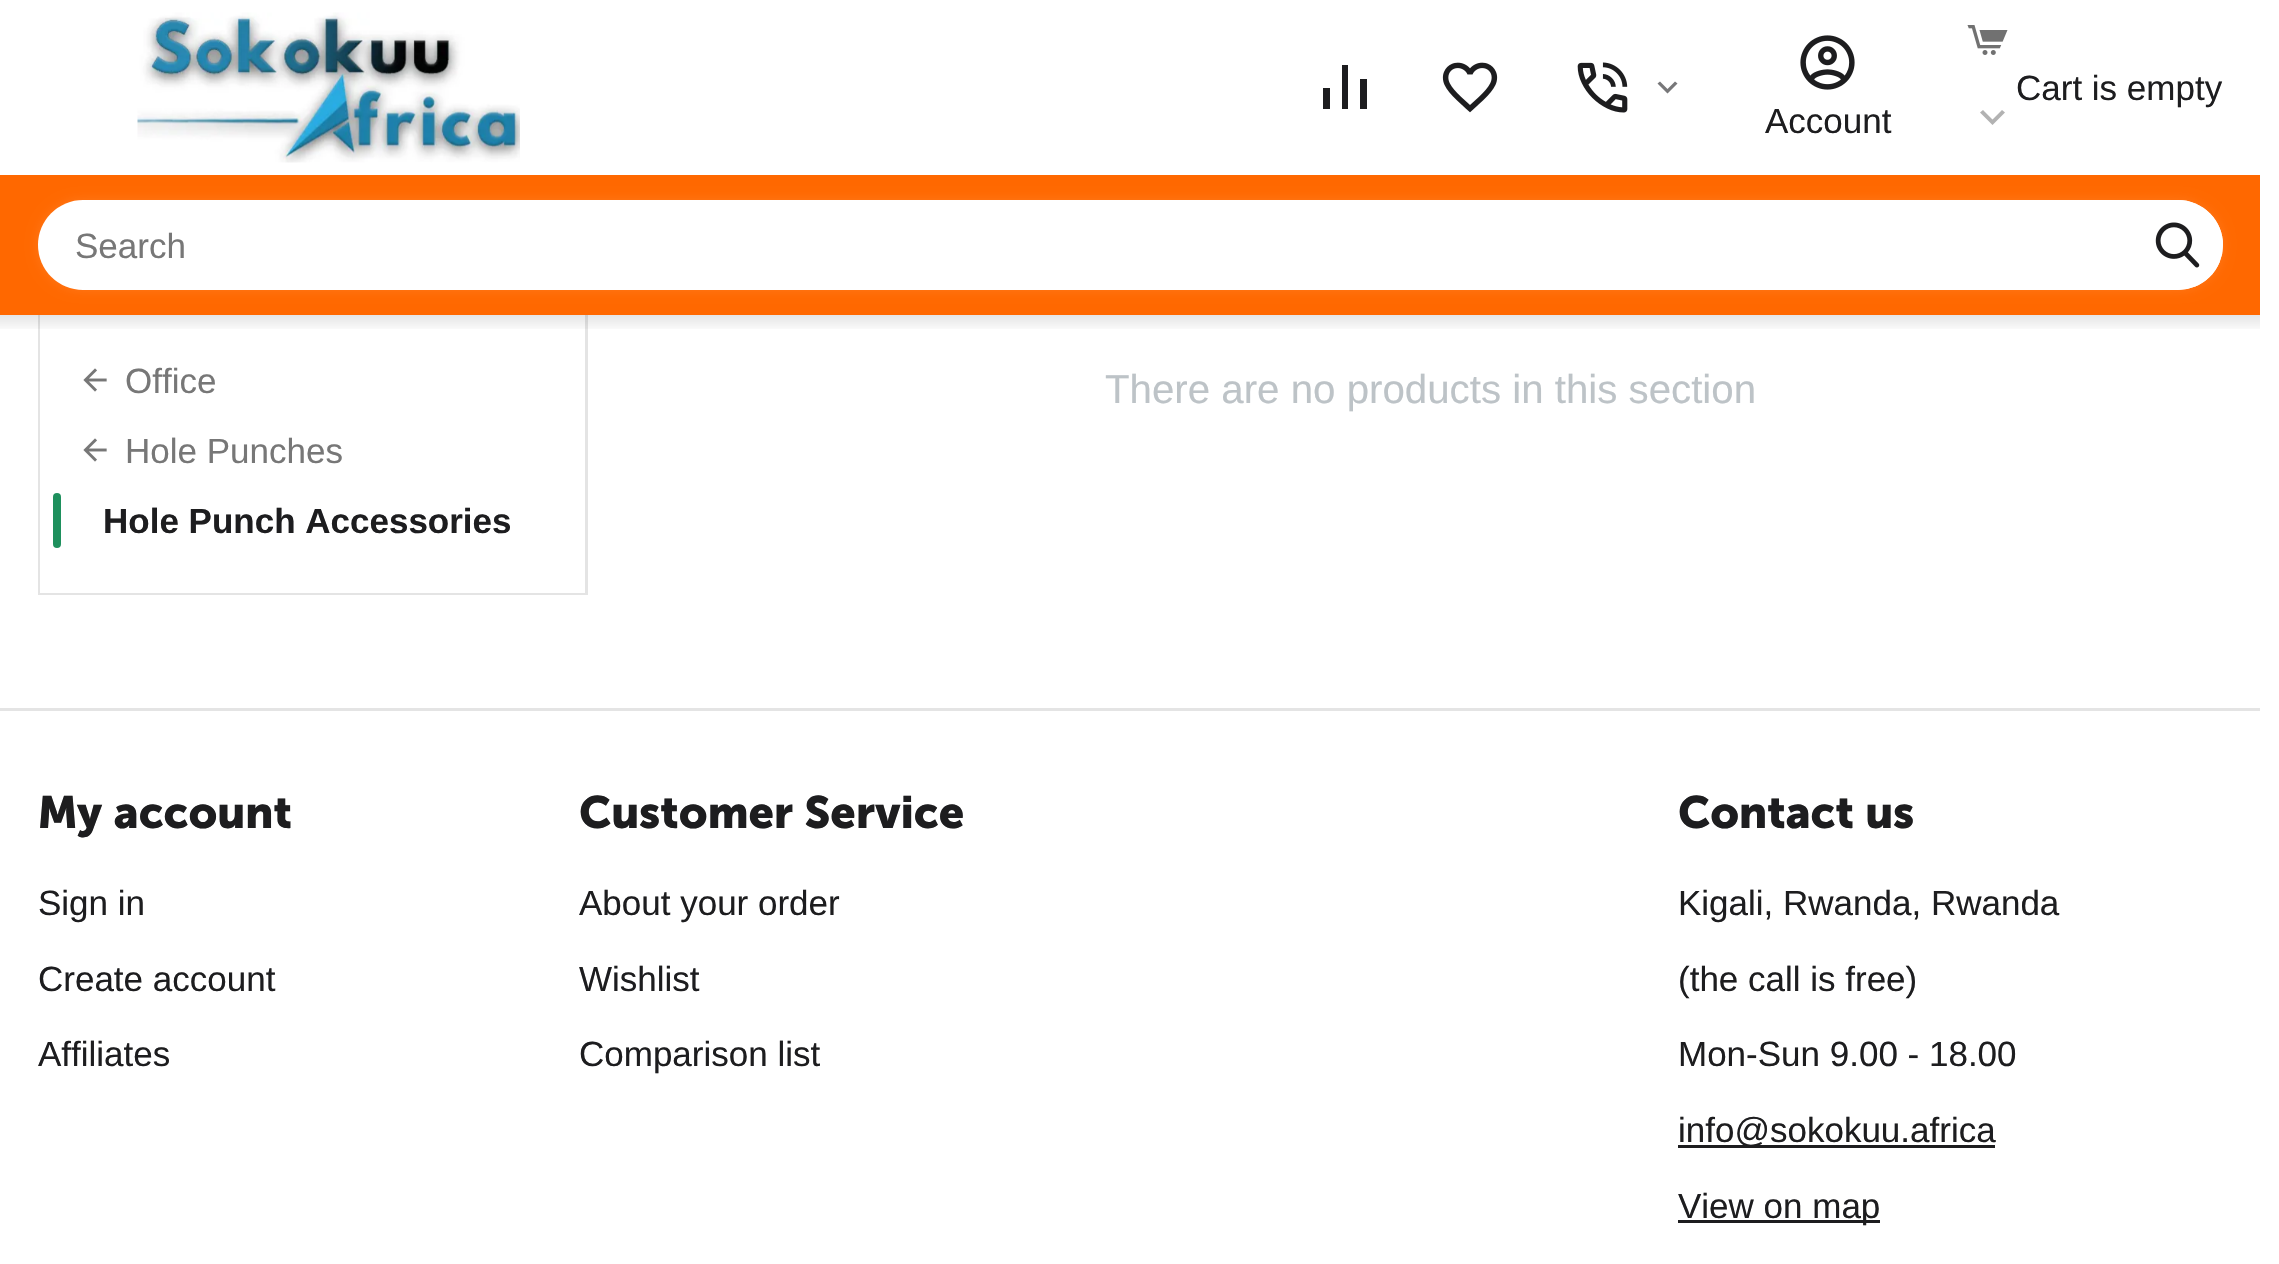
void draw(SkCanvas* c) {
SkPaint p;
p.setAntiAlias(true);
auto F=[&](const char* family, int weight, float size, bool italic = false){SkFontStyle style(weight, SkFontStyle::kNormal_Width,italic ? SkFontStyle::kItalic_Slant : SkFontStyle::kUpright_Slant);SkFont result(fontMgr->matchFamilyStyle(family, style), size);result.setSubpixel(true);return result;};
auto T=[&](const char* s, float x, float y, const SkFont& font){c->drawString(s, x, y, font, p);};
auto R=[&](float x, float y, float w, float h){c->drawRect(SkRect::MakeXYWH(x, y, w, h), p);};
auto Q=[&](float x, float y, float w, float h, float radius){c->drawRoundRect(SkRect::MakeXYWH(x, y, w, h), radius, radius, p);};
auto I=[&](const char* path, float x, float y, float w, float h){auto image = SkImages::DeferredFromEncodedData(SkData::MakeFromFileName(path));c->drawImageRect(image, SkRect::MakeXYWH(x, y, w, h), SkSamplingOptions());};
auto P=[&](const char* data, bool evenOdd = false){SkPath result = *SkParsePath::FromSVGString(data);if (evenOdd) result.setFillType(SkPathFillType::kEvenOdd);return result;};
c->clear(0xffffffff);
I("1.png",137,12,383,151);
p.setColor(0xff1d1d1f);
c->drawPath(P("M1323 88h7v21h-7zm19-23h6v44h-6zm18 14h7v30h-7z"),p);
I("2.png",1442,62,56,51);
I("3.png",1577,62,51,51);
p.setColor(0xff777779);
c->drawPath(P("M1675 81.5l-7.5 7.5l-7.5-7.5l-2.5 2l10 10l10-10z"),p);
I("4.png",1967,25,41,30);
auto f1 = F("Liberation Sans",400,35);
p.setColor(0xff1d1d1f);
T("Cart is empty",2016,100,f1);
p.setColor(0xffb2b2b2);
c->drawPath(P("M2002 110l-9.5 9.5l-9.5-9.5l-3 2.5l12.5 12.5l12.5-12.5z"),p);
I("5.png",1800,35,55,55);
p.setColor(0xff1d1d1f);
T("Account",1765,133,f1);
p.setStroke(true);
p.setStrokeWidth(3);
p.setColor(0xffe4e4e4);
c->drawRect(SkRect::MakeXYWH(39.5,216.5,547,377),p);
p.setStroke(false);
p.setColor(0xffff6800);
R(0,175,2260,140);
p.setColor(0x1affffff);
p.setMaskFilter(SkMaskFilter::MakeBlur(kNormal_SkBlurStyle, 6));
c->drawRoundRect(SkRect::MakeXYWH(38,200,2185,90),45,45,p);
p.setMaskFilter(nullptr);
p.setColor(0xffffffff);
Q(38,200,2185,90,45);
p.setColor(0xff777777);
T("Search",75,258,f1);
p.setColor(0xffffffff);
c->drawCircle(2178,245,45,p);
I("6.png",2155,222,45,46);
R(40,315,545,278);
{
const SkColor colors[] = {0x1a000000,0x00000000};
const float stops[] = {0,1};
const SkPoint ends[] = {{1130,315}, {1130,333}};
p.setShader(SkGradientShader::MakeLinear(ends, colors, stops, 2, SkTileMode::kClamp));
p.setAlpha(255);
}
R(0,315,2260,14);
I("7.png",83,368,24,24);
p.setShader(nullptr);
p.setColor(0xff777777);
T("Office",125,393,f1);
I("7.png",83,438,24,24);
T("Hole Punches",125,463,f1);
p.setColor(0xff1e905d);
Q(53,493,8,55,4);
auto f2 = F("Liberation Sans",700,35);
p.setColor(0xff1d1d1f);
T("Hole Punch Accessories",103,533,f2);
auto f3 = F("Liberation Sans",400,40.25);
p.setColor(0xffbdc3c7);
T("There are no products in this section",1105,403,f3);
p.setColor(0xffe4e4e4);
R(0,708,2260,3);
auto f4 = F("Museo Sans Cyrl",700,45);
p.setColor(0xff1d1d1f);
T("My account",38,828,f4);
T("Sign in",38,915,f1);
T("Create account",38,991,f1);
T("Affiliates",38,1066,f1);
T("Customer Service",579,828,f4);
T("About your order",579,915,f1);
T("Wishlist",579,991,f1);
T("Comparison list",579,1066,f1);
T("Contact us",1678,828,f4);
T("Kigali, Rwanda, Rwanda",1678,915,f1);
T("(the call is free)",1678,991,f1);
T("Mon-Sun 9.00 - 18.00",1678,1066,f1);
R(1678,1145,317,3);
T("info@sokokuu.africa",1678,1142,f1);
R(1678,1220,202,3);
T("View on map",1678,1218,f1);
}
